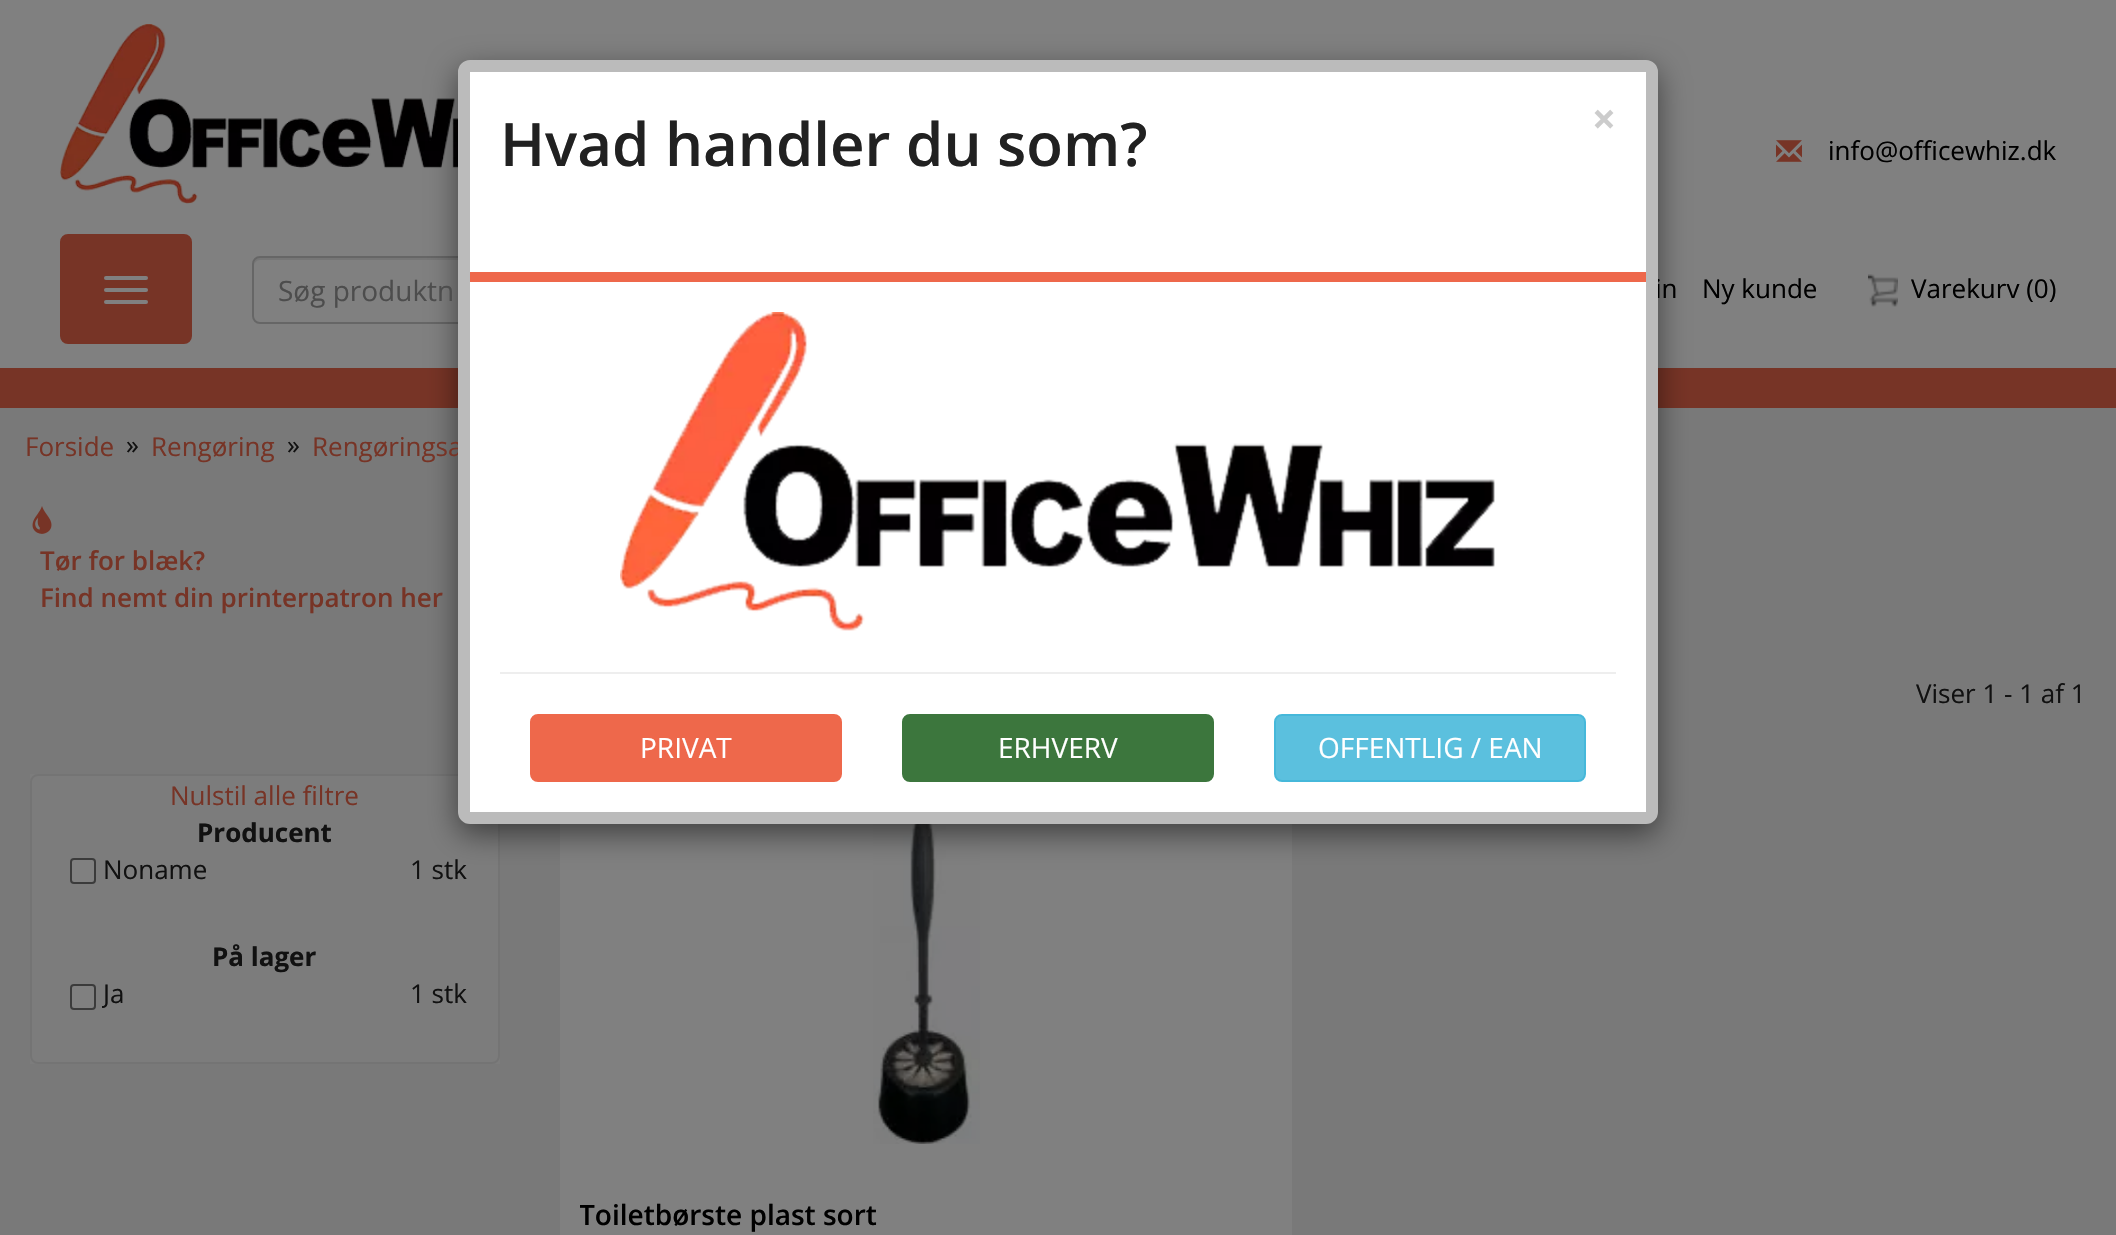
void draw(SkCanvas* c) {
SkPaint p;
p.setAntiAlias(true);
auto F=[&](const char* family, int weight, float size, bool italic = false){SkFontStyle style(weight, SkFontStyle::kNormal_Width,italic ? SkFontStyle::kItalic_Slant : SkFontStyle::kUpright_Slant);SkFont result(fontMgr->matchFamilyStyle(family, style), size);result.setSubpixel(true);return result;};
auto T=[&](const char* s, float x, float y, const SkFont& font){c->drawString(s, x, y, font, p);};
auto R=[&](float x, float y, float w, float h){c->drawRect(SkRect::MakeXYWH(x, y, w, h), p);};
auto Q=[&](float x, float y, float w, float h, float radius){c->drawRoundRect(SkRect::MakeXYWH(x, y, w, h), radius, radius, p);};
auto I=[&](const char* path, float x, float y, float w, float h){auto image = SkImages::DeferredFromEncodedData(SkData::MakeFromFileName(path));c->drawImageRect(image, SkRect::MakeXYWH(x, y, w, h), SkSamplingOptions());};
auto P=[&](const char* data, bool evenOdd = false){SkPath result = *SkParsePath::FromSVGString(data);if (evenOdd) result.setFillType(SkPathFillType::kEvenOdd);return result;};
c->clear(0xff797979);
p.setColor(0xff808080);
R(0,0,2116,368);
I("2.png",60,24,398,180);
p.setColor(0xff767676);
c->drawPath(P("M260 260h678v-2h-678c-5 0-6 4-6 8c0-3 3-6 6-6z"),p);
p.setStroke(true);
p.setStrokeWidth(2);
p.setColor(0xff666666);
c->drawPath(P("M260 257h679v66h-679c-4 0-7-3-7-7v-52c0-4 3-7 7-7z"),p);
p.setStroke(false);
p.setColor(0xff773426);
R(0,368,2116,40);
p.setColor(0xff7c7c7c);
R(30,774,470,290);
p.setStroke(true);
p.setColor(0xff747474);
c->drawRoundRect(SkRect::MakeXYWH(31,775,468,288),7,7,p);
p.setStroke(false);
p.setColor(0xff808080);
R(560,824,732,411);
I("6.png",873,824,107,320);
p.setColor(0x80000000);
p.setMaskFilter(SkMaskFilter::MakeBlur(kNormal_SkBlurStyle, 15));
c->drawRoundRect(SkRect::MakeXYWH(458,70,1200,764),12,12,p);
p.setMaskFilter(nullptr);
auto f1 = F("Open Sans",400,26);
p.setColor(0xff000000);
T("in",1655,298,f1);
p.setColor(0xff773426);
T("Rengøringsa",312,456,f1);
p.setColor(0xffffffff);
c->drawRoundRect(SkRect::MakeXYWH(464,66,1188,752),6,6,p);
p.setStroke(true);
p.setStrokeWidth(12);
p.setColor(0xffbbbbbb);
c->drawRoundRect(SkRect::MakeXYWH(464,66,1188,752),6,6,p);
p.setStroke(false);
p.setColor(0xffee684b);
R(470,272,1176,10);
auto f2 = F("Open Sans",600,60);
p.setColor(0xff212121);
T("Hvad handler du som?",500,166,f2);
auto f3 = F("Open Sans",700,42);
p.setColor(0xffcccccc);
T("×",1592,134,f3);
I("1.png",620,312,875,319);
p.setColor(0xffeeeeee);
R(500,672,1116,2);
p.setColor(0xffee684b);
c->drawRoundRect(SkRect::MakeXYWH(531,715,310,66),7,7,p);
p.setStroke(true);
p.setStrokeWidth(2);
c->drawRoundRect(SkRect::MakeXYWH(531,715,310,66),7,7,p);
auto f4 = F("Open Sans",400,28);
p.setStroke(false);
p.setColor(0xffffffff);
T("PRIVAT",640,758,f4);
p.setColor(0xff3c763d);
c->drawRoundRect(SkRect::MakeXYWH(903,715,310,66),7,7,p);
p.setStroke(true);
c->drawRoundRect(SkRect::MakeXYWH(903,715,310,66),7,7,p);
p.setStroke(false);
p.setColor(0xffffffff);
T("ERHVERV",998,758,f4);
p.setColor(0xff5bc0de);
c->drawRoundRect(SkRect::MakeXYWH(1275,715,310,66),7,7,p);
p.setStroke(true);
p.setColor(0xff46b8da);
c->drawRoundRect(SkRect::MakeXYWH(1275,715,310,66),7,7,p);
p.setStroke(false);
p.setColor(0xffffffff);
T("OFFENTLIG / EAN",1318,758,f4);
I("3.png",1776,140,26,22);
p.setColor(0xff000000);
T("info@officewhiz.dk",1828,160,f1);
p.setColor(0xff773426);
c->drawRoundRect(SkRect::MakeXYWH(61,235,130,108),7,7,p);
p.setStroke(true);
c->drawRoundRect(SkRect::MakeXYWH(61,235,130,108),7,7,p);
p.setStroke(false);
p.setColor(0xff808080);
Q(104,276,44,4,2);
Q(104,288,44,4,2);
Q(104,300,44,4,2);
p.setColor(0xff4d4d4d);
T("Søg produktn",278,301,f4);
p.setColor(0xff000000);
T("Ny kunde",1702,298,f1);
I("4.png",1868,274,30,33);
T("Varekurv (0)",1911,298,f1);
p.setColor(0xff773426);
T("Forside",25,456,f1);
p.setColor(0xff111111);
T("»",126,454,f1);
p.setColor(0xff773426);
T("Rengøring",151,456,f1);
p.setColor(0xff111111);
T("»",287,454,f1);
I("5.png",32,506,20,28);
auto f5 = F("Open Sans",600,26);
p.setColor(0xff773426);
T("Tør for blæk?",40,570,f5);
T("Find nemt din printerpatron her",40,607,f5);
T("Nulstil alle filtre",170,805,f1);
auto f6 = F("Open Sans",700,26);
p.setColor(0xff111111);
T("Producent",197,842,f6);
p.setColor(0xff808080);
c->drawRoundRect(SkRect::MakeXYWH(71,859,24,24),3,3,p);
p.setStroke(true);
p.setColor(0xff3b3b3b);
c->drawRoundRect(SkRect::MakeXYWH(71,859,24,24),3,3,p);
p.setStroke(false);
p.setColor(0xff111111);
T("Noname",103,879,f1);
T("1 stk",410,879,f1);
T("På lager",212,966,f6);
p.setColor(0xff808080);
c->drawRoundRect(SkRect::MakeXYWH(71,985,24,24),3,3,p);
p.setStroke(true);
p.setColor(0xff3b3b3b);
c->drawRoundRect(SkRect::MakeXYWH(71,985,24,24),3,3,p);
c->save();
c->clipRect(SkRect::MakeXYWH(102,976,22,36));
p.setStroke(false);
p.setColor(0xff111111);
T("Ja",103,1003,f1);
c->restore();
T("1 stk",410,1003,f1);
T("Viser 1 - 1 af 1",1916,703,f1);
c->save();
c->clipRect(SkRect::MakeXYWH(580,1194,692,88));
auto f7 = F("Open Sans",600,28);
p.setColor(0xff000000);
T("Toiletbørste plast sort",579,1225,f7);
c->restore();
}
